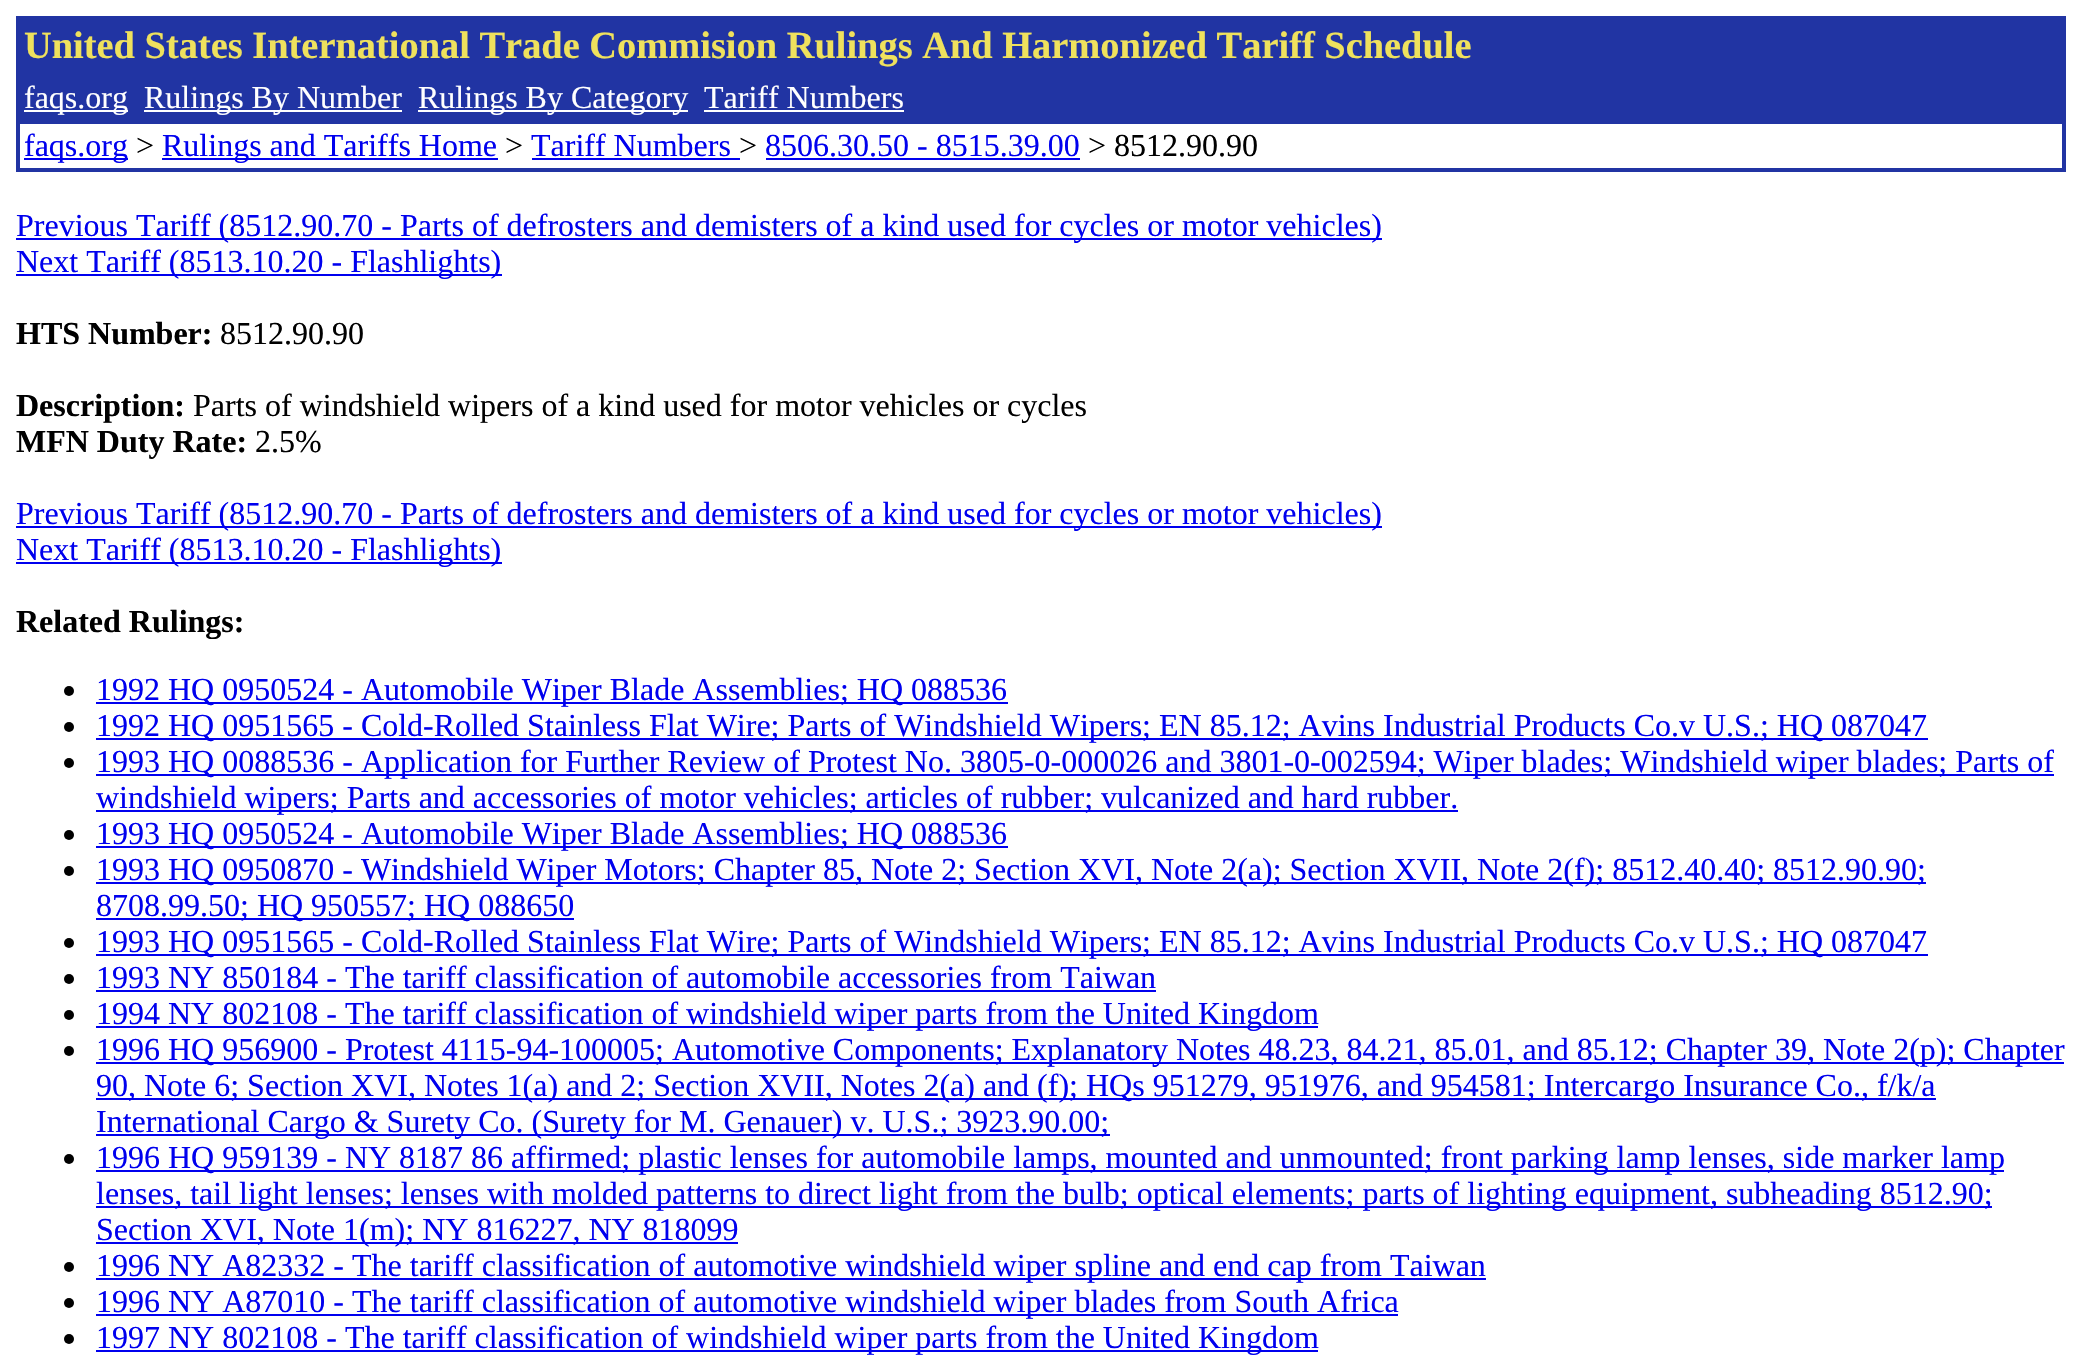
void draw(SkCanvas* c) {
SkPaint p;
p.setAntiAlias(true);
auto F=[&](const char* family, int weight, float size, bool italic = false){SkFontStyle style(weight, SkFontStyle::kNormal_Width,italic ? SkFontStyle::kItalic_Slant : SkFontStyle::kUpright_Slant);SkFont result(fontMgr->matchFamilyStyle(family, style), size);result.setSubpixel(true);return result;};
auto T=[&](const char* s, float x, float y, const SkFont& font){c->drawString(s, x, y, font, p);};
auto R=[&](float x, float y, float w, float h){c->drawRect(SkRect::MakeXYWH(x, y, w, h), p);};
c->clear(0xffffffff);
p.setColor(0xff2134a3);
R(16,16,2050,156);
auto f1 = F("Liberation Serif",700,38.4);
p.setColor(0xffefe15d);
T("United States International Trade Commision Rulings And Harmonized Tariff Schedule",24,58,f1);
p.setColor(0xffffffff);
R(24,110,104,2);
auto f2 = F("Liberation Serif",400,32);
T("faqs.org",24,108,f2);
R(144,110,258,2);
T("Rulings By Number",144,108,f2);
R(418,110,270,2);
T("Rulings By Category",418,108,f2);
T("Tariff Numbers",704,108,f2);
R(704,110,200,2);
R(20,124,2042,44);
p.setColor(0xff0000ee);
R(24,158,104,2);
T("faqs.org",24,156,f2);
p.setColor(0xff000000);
T(">",136,156,f2);
p.setColor(0xff0000ee);
R(162,158,336,2);
T("Rulings and Tariffs Home",162,156,f2);
p.setColor(0xff000000);
T(">",505,156,f2);
p.setColor(0xff0000ee);
T("Tariff Numbers",531,156,f2);
p.setColor(0xff000000);
T(">",739,156,f2);
p.setColor(0xff0000ee);
R(532,158,208,2);
T("8506.30.50 - 8515.39.00",765,156,f2);
R(766,158,314,2);
p.setColor(0xff000000);
T("> 8512.90.90",1088,156,f2);
p.setColor(0xff0000ee);
R(16,238,1366,2);
T("Previous Tariff (8512.90.70 - Parts of defrosters and demisters of a kind used for cycles or motor vehicles)",16,236,f2);
R(16,274,486,2);
T("Next Tariff (8513.10.20 - Flashlights)",16,272,f2);
auto f3 = F("Liberation Serif",700,32);
p.setColor(0xff000000);
T("HTS Number:",16,344,f3);
T("8512.90.90",220,344,f2);
T("Description:",16,416,f3);
T("Parts of windshield wipers of a kind used for motor vehicles or cycles",193,416,f2);
T("MFN Duty Rate:",16,452,f3);
T("2.5%",255,452,f2);
p.setColor(0xff0000ee);
R(16,526,1366,2);
T("Previous Tariff (8512.90.70 - Parts of defrosters and demisters of a kind used for cycles or motor vehicles)",16,524,f2);
R(16,562,486,2);
T("Next Tariff (8513.10.20 - Flashlights)",16,560,f2);
p.setColor(0xff000000);
T("Related Rulings:",16,632,f3);
c->drawCircle(69,691,5,p);
p.setColor(0xff0000ee);
R(96,702,912,2);
T("1992 HQ 0950524 - Automobile Wiper Blade Assemblies; HQ 088536",96,700,f2);
p.setColor(0xff000000);
c->drawCircle(69,727,5,p);
p.setColor(0xff0000ee);
R(96,738,1832,2);
T("1992 HQ 0951565 - Cold-Rolled Stainless Flat Wire; Parts of Windshield Wipers; EN 85.12; Avins Industrial Products Co.v U.S.; HQ 087047",96,736,f2);
p.setColor(0xff000000);
c->drawCircle(69,763,5,p);
p.setColor(0xff0000ee);
R(96,774,1958,2);
T("1993 HQ 0088536 - Application for Further Review of Protest No. 3805-0-000026 and 3801-0-002594; Wiper blades; Windshield wiper blades; Parts of",96,772,f2);
R(96,810,1362,2);
T("windshield wipers; Parts and accessories of motor vehicles; articles of rubber; vulcanized and hard rubber.",96,808,f2);
p.setColor(0xff000000);
c->drawCircle(69,835,5,p);
p.setColor(0xff0000ee);
R(96,846,912,2);
T("1993 HQ 0950524 - Automobile Wiper Blade Assemblies; HQ 088536",96,844,f2);
p.setColor(0xff000000);
c->drawCircle(69,871,5,p);
p.setColor(0xff0000ee);
R(96,882,1830,2);
T("1993 HQ 0950870 - Windshield Wiper Motors; Chapter 85, Note 2; Section XVI, Note 2(a); Section XVII, Note 2(f); 8512.40.40; 8512.90.90;",96,880,f2);
R(96,918,478,2);
T("8708.99.50; HQ 950557; HQ 088650",96,916,f2);
p.setColor(0xff000000);
c->drawCircle(69,943,5,p);
p.setColor(0xff0000ee);
R(96,954,1832,2);
T("1993 HQ 0951565 - Cold-Rolled Stainless Flat Wire; Parts of Windshield Wipers; EN 85.12; Avins Industrial Products Co.v U.S.; HQ 087047",96,952,f2);
p.setColor(0xff000000);
c->drawCircle(69,979,5,p);
p.setColor(0xff0000ee);
T("1993 NY 850184 - The tariff classification of automobile accessories from Taiwan",96,988,f2);
R(96,990,1060,2);
p.setColor(0xff000000);
c->drawCircle(69,1015,5,p);
p.setColor(0xff0000ee);
R(96,1026,1222,2);
T("1994 NY 802108 - The tariff classification of windshield wiper parts from the United Kingdom",96,1024,f2);
p.setColor(0xff000000);
c->drawCircle(69,1051,5,p);
p.setColor(0xff0000ee);
R(96,1062,1968,2);
T("1996 HQ 956900 - Protest 4115-94-100005; Automotive Components; Explanatory Notes 48.23, 84.21, 85.01, and 85.12; Chapter 39, Note 2(p); Chapter",96,1060,f2);
R(96,1098,1840,2);
T("90, Note 6; Section XVI, Notes 1(a) and 2; Section XVII, Notes 2(a) and (f); HQs 951279, 951976, and 954581; Intercargo Insurance Co., f/k/a",96,1096,f2);
R(96,1134,1014,2);
T("International Cargo & Surety Co. (Surety for M. Genauer) v. U.S.; 3923.90.00;",96,1132,f2);
p.setColor(0xff000000);
c->drawCircle(69,1159,5,p);
p.setColor(0xff0000ee);
R(96,1170,1908,2);
T("1996 HQ 959139 - NY 8187 86 affirmed; plastic lenses for automobile lamps, mounted and unmounted; front parking lamp lenses, side marker lamp",96,1168,f2);
R(96,1206,1896,2);
T("lenses, tail light lenses; lenses with molded patterns to direct light from the bulb; optical elements; parts of lighting equipment, subheading 8512.90;",96,1204,f2);
R(96,1242,642,2);
T("Section XVI, Note 1(m); NY 816227, NY 818099",96,1240,f2);
p.setColor(0xff000000);
c->drawCircle(69,1267,5,p);
p.setColor(0xff0000ee);
R(96,1278,1390,2);
T("1996 NY A82332 - The tariff classification of automotive windshield wiper spline and end cap from Taiwan",96,1276,f2);
p.setColor(0xff000000);
c->drawCircle(69,1303,5,p);
p.setColor(0xff0000ee);
R(96,1314,1302,2);
T("1996 NY A87010 - The tariff classification of automotive windshield wiper blades from South Africa",96,1312,f2);
p.setColor(0xff000000);
c->drawCircle(69,1339,5,p);
p.setColor(0xff0000ee);
R(96,1350,1222,2);
T("1997 NY 802108 - The tariff classification of windshield wiper parts from the United Kingdom",96,1348,f2);
}
